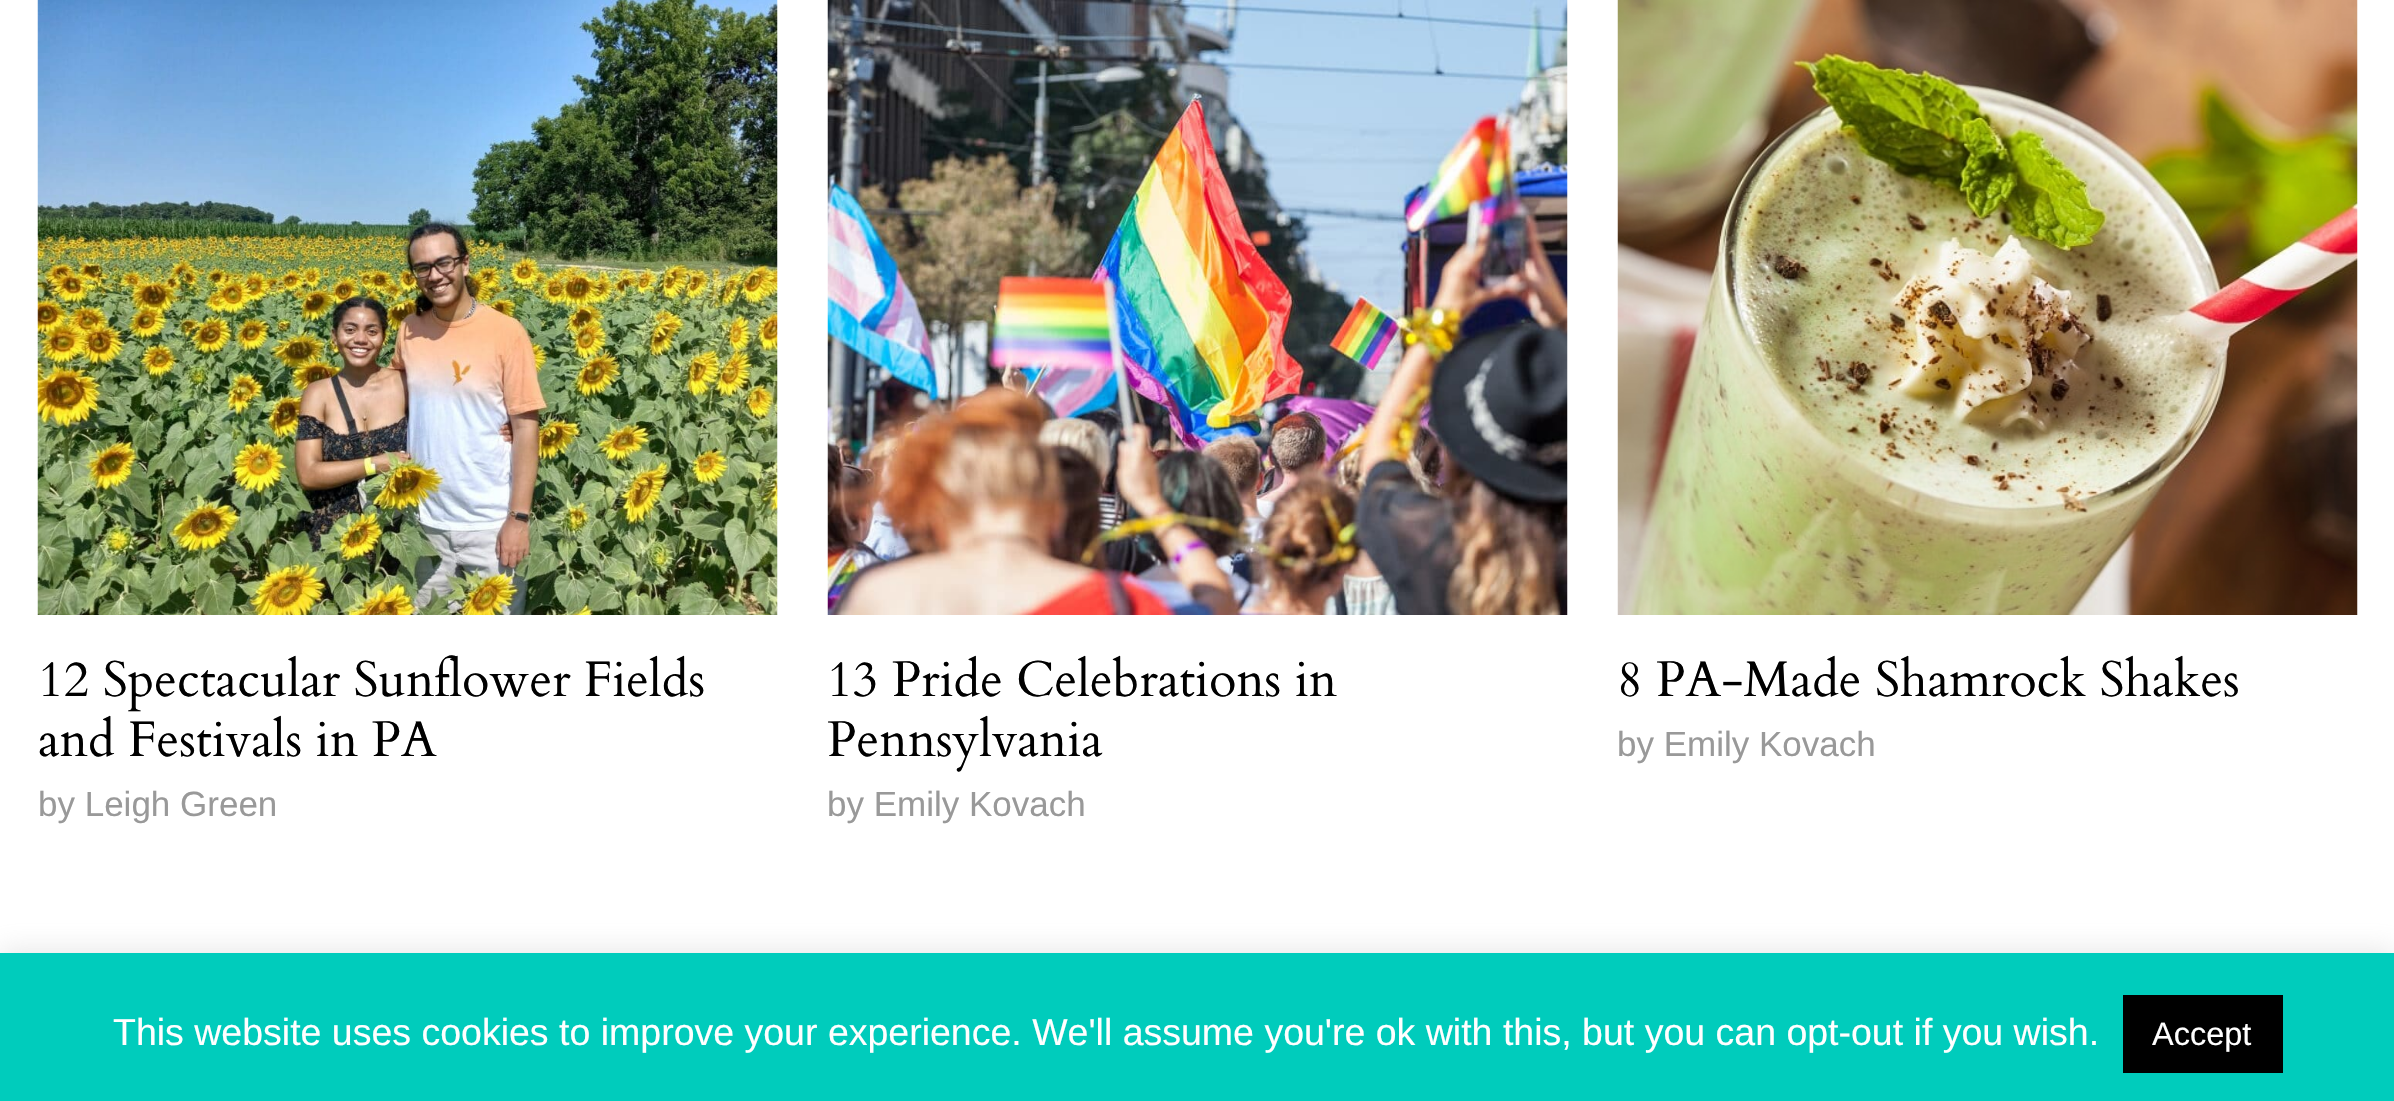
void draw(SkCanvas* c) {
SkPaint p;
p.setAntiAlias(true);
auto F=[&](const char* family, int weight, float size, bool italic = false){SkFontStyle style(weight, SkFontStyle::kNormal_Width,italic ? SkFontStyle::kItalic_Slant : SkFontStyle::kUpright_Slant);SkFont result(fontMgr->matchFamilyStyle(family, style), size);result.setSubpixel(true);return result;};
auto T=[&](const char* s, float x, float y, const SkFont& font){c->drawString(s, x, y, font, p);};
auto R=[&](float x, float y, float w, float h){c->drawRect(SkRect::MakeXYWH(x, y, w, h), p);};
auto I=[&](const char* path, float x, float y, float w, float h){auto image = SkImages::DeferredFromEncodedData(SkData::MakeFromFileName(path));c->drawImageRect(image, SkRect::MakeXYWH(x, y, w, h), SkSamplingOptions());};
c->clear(0xffffffff);
I("1.png",37,0,741,615);
auto f1 = F("Cardo",400,50);
p.setColor(0xff000000);
T("12 Spectacular Sunflower Fields",38,696,f1);
T("and Festivals in PA",38,756,f1);
auto f2 = F("Liberation Sans",400,35);
p.setColor(0xff999999);
T("by Leigh Green",38,816,f2);
I("2.png",827,0,741,615);
p.setColor(0xff000000);
T("13 Pride Celebrations in",827,696,f1);
T("Pennsylvania",827,756,f1);
p.setColor(0xff999999);
T("by Emily Kovach",827,816,f2);
I("3.png",1617,0,741,615);
p.setColor(0xff000000);
T("8 PA-Made Shamrock Shakes",1617,696,f1);
p.setColor(0xff999999);
T("by Emily Kovach",1617,756,f2);
p.setColor(0x4dacabab);
p.setMaskFilter(SkMaskFilter::MakeBlur(kNormal_SkBlurStyle, 12.5));
c->drawRect(SkRect::MakeXYWH(0,950,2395,150),p);
p.setMaskFilter(nullptr);
p.setColor(0xff00ccbc);
R(0,953,2394,148);
auto f3 = F("Liberation Sans",400,37.5);
p.setColor(0xffffffff);
T("This website uses cookies to improve your experience. We'll assume you're ok with this, but you can opt-out if you wish.",113,1045,f3);
p.setColor(0xff000000);
R(2123,995,160,78);
auto f4 = F("Liberation Sans",400,32.5);
p.setColor(0xffffffff);
T("Accept",2152,1045,f4);
}
